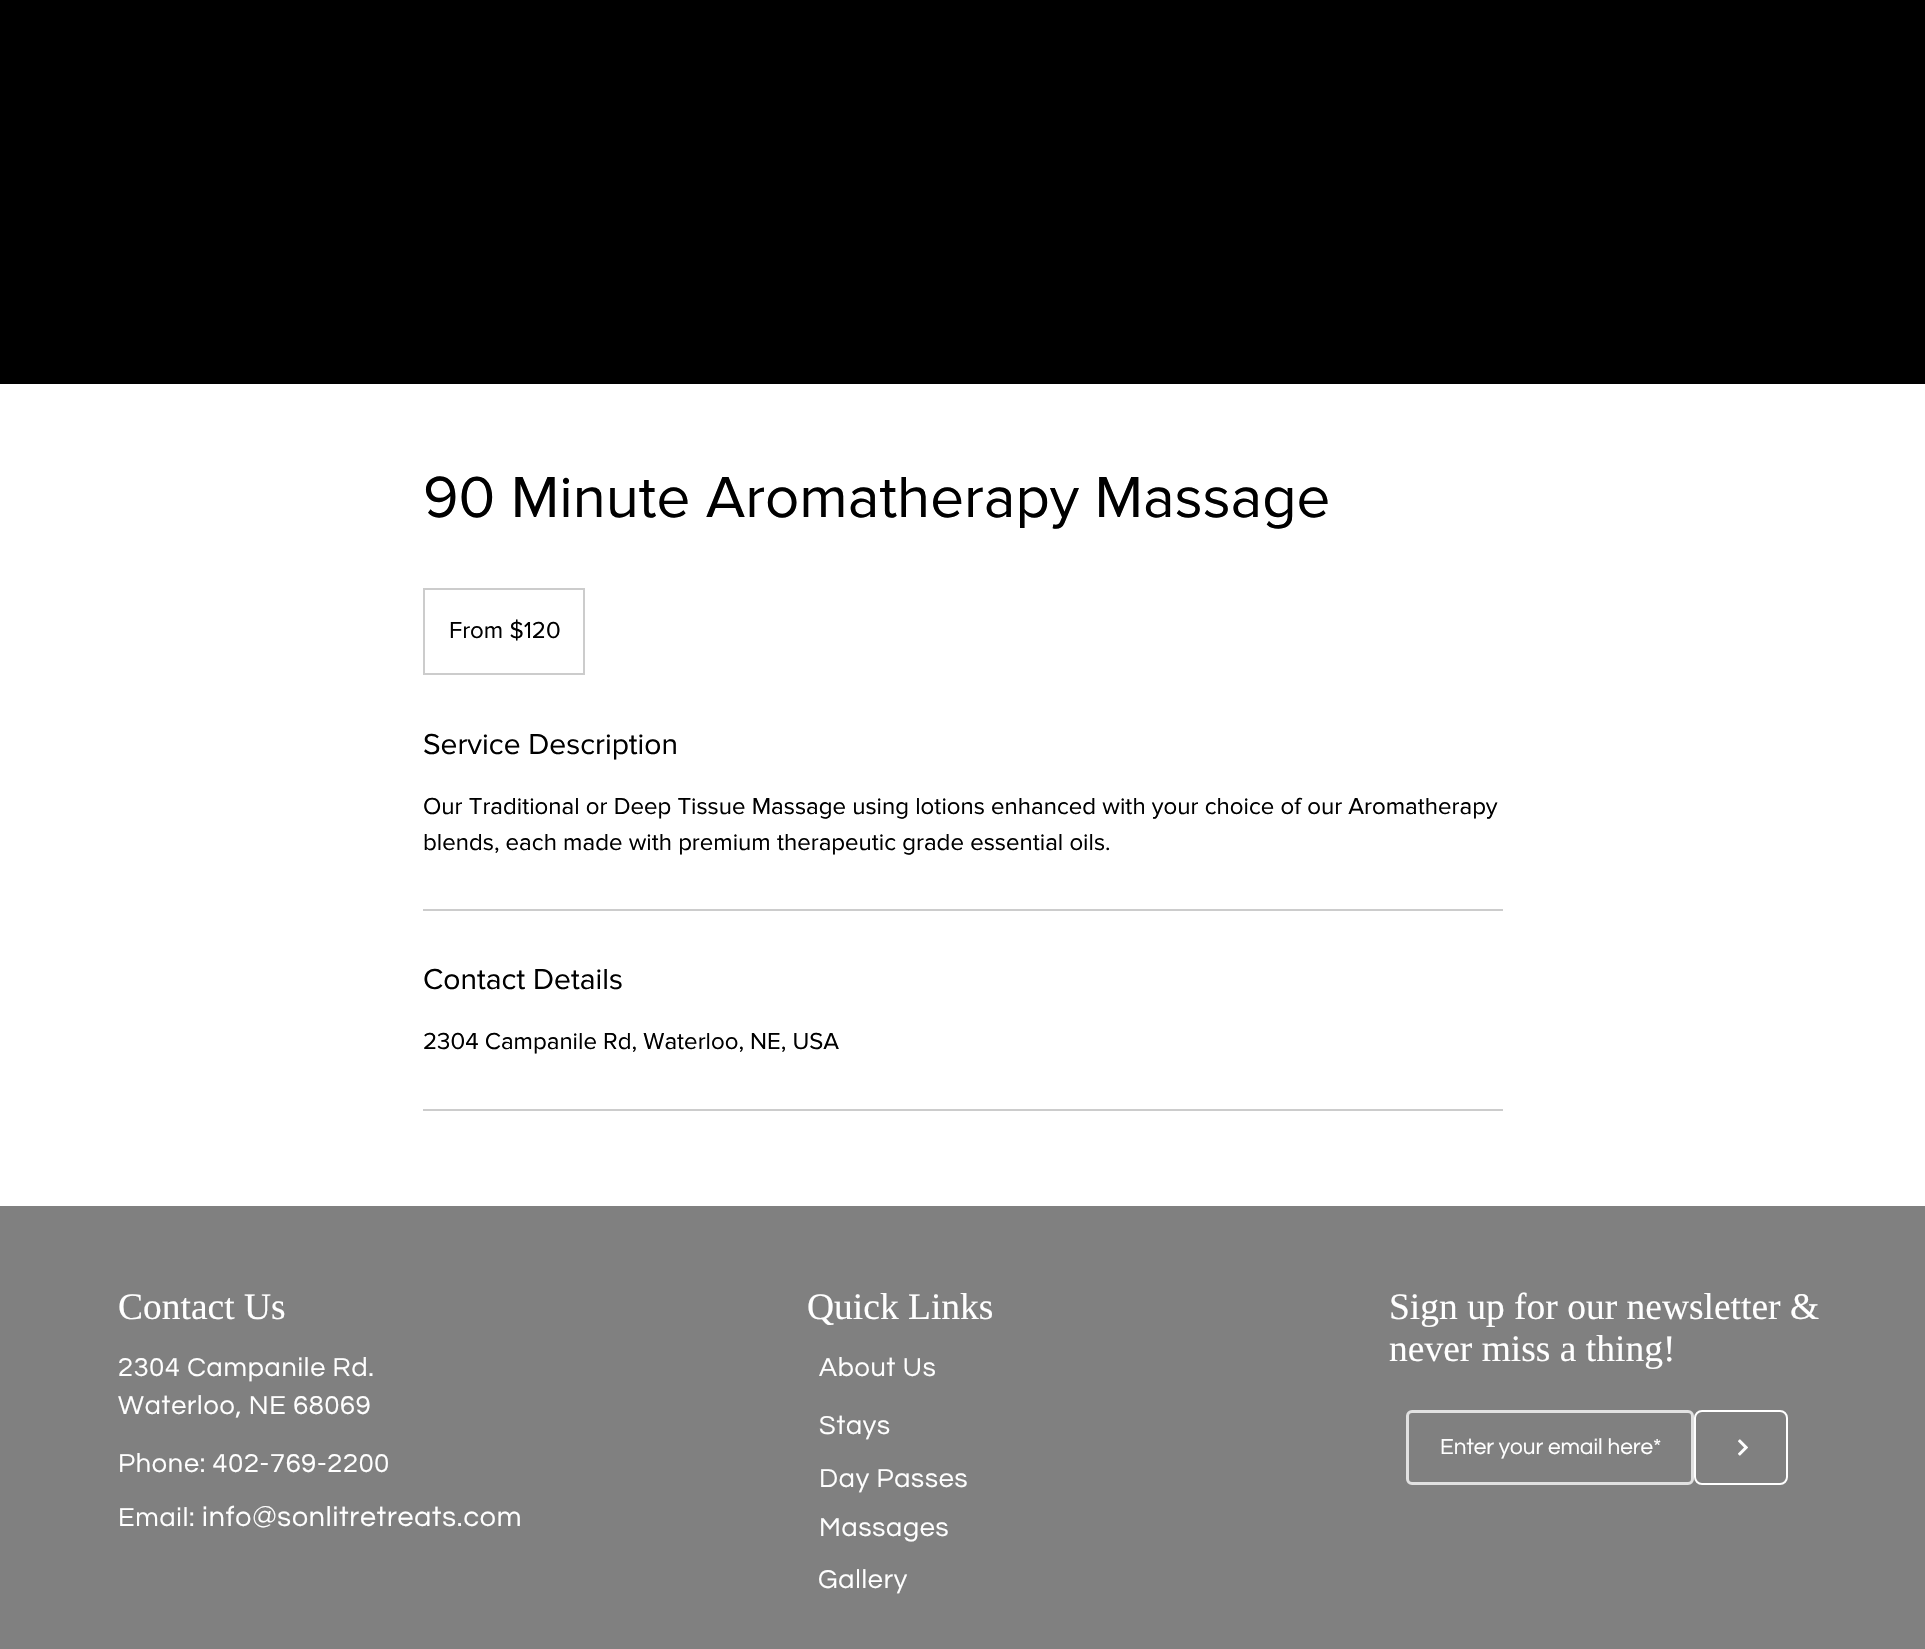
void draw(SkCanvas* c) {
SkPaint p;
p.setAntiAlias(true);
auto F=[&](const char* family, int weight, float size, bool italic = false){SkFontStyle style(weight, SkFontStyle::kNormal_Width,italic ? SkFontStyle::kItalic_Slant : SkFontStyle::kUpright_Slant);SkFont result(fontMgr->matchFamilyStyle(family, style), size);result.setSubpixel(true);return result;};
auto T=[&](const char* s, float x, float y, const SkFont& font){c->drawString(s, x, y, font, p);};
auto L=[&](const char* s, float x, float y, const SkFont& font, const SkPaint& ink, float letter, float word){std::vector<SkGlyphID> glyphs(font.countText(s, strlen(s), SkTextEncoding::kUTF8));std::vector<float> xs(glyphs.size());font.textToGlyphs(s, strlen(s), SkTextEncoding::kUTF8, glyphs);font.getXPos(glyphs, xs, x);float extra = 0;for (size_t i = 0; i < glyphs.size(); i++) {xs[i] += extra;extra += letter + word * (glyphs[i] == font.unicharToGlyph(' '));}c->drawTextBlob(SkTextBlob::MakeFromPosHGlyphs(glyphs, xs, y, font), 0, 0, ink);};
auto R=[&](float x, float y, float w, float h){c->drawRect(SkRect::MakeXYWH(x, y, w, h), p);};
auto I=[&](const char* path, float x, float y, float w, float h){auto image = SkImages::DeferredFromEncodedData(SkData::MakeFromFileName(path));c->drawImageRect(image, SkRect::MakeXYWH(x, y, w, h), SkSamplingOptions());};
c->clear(0xffffffff);
p.setColor(0xff000000);
R(0,0,1925,384);
auto f1 = F("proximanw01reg",400,60);
T("90 Minute Aromatherapy Massage",423,517,f1);
p.setStroke(true);
p.setStrokeWidth(2);
p.setColor(0xffcccccc);
c->drawRect(SkRect::MakeXYWH(424,589,160,85),p);
auto f2 = F("proximanw01reg",400,24);
p.setStroke(false);
p.setColor(0xff000000);
T("From $120",449,638,f2);
auto f3 = F("proximanw01reg",400,30);
T("Service Description",423,754,f3);
T("Our Traditional or Deep Tissue Massage using lotions enhanced with your choice of our Aromatherapy",423,814,f2);
T("blends, each made with premium therapeutic grade essential oils.",423,850,f2);
p.setColor(0xffcccccc);
R(423,909,1080,2);
p.setColor(0xff000000);
T("Contact Details",423,989,f3);
T("2304 Campanile Rd, Waterloo, NE, USA",423,1049,f2);
p.setColor(0xffcccccc);
R(423,1109,1080,2);
p.setColor(0xff808080);
R(0,1206,1925,443);
auto f4 = F("Liberation Serif",400,37.5);
p.setColor(0xffffffff);
T("Contact Us",118,1319,f4);
auto f5 = F("Questrial",400,27);
L("2304 Campanile Rd.",118,1376,f5,p,.8,0);
L("Waterloo, NE 68069",118,1414,f5,p,.8,0);
L("Phone: 402-769-2200",118,1472,f5,p,.8,0);
L("Email:",118,1526,f5,p,.8,0);
auto f6 = F("Questrial",400,28.5);
L("info@sonlitretreats.com",202,1526,f6,p,.85,0);
T("Quick Links",807,1319,f4);
L("About Us",819,1376,f5,p,.8,0);
L("Stays",819,1434,f5,p,.8,0);
L("Day Passes",819,1487,f5,p,.8,0);
L("Massages",819,1536,f5,p,.8,0);
T("Sign up for our newsletter &",1389,1319,f4);
T("never miss a thing!",1389,1361,f4);
p.setStroke(true);
p.setStrokeWidth(3);
p.setColor(0xffe1e1e1);
c->drawRoundRect(SkRect::MakeXYWH(1407.5,1411.5,285,72),4.5,4.5,p);
auto f7 = F("Questrial",400,22.5);
p.setStroke(false);
p.setColor(0xffffffff);
T("Enter your email here*",1440,1454,f7);
p.setStroke(true);
p.setStrokeWidth(2);
c->drawRoundRect(SkRect::MakeXYWH(1695,1411,92,73),7,7,p);
I("1.png",1738,1439,10,17);
p.setStroke(false);
L("Gallery",818,1588,f5,p,.8,0);
}
